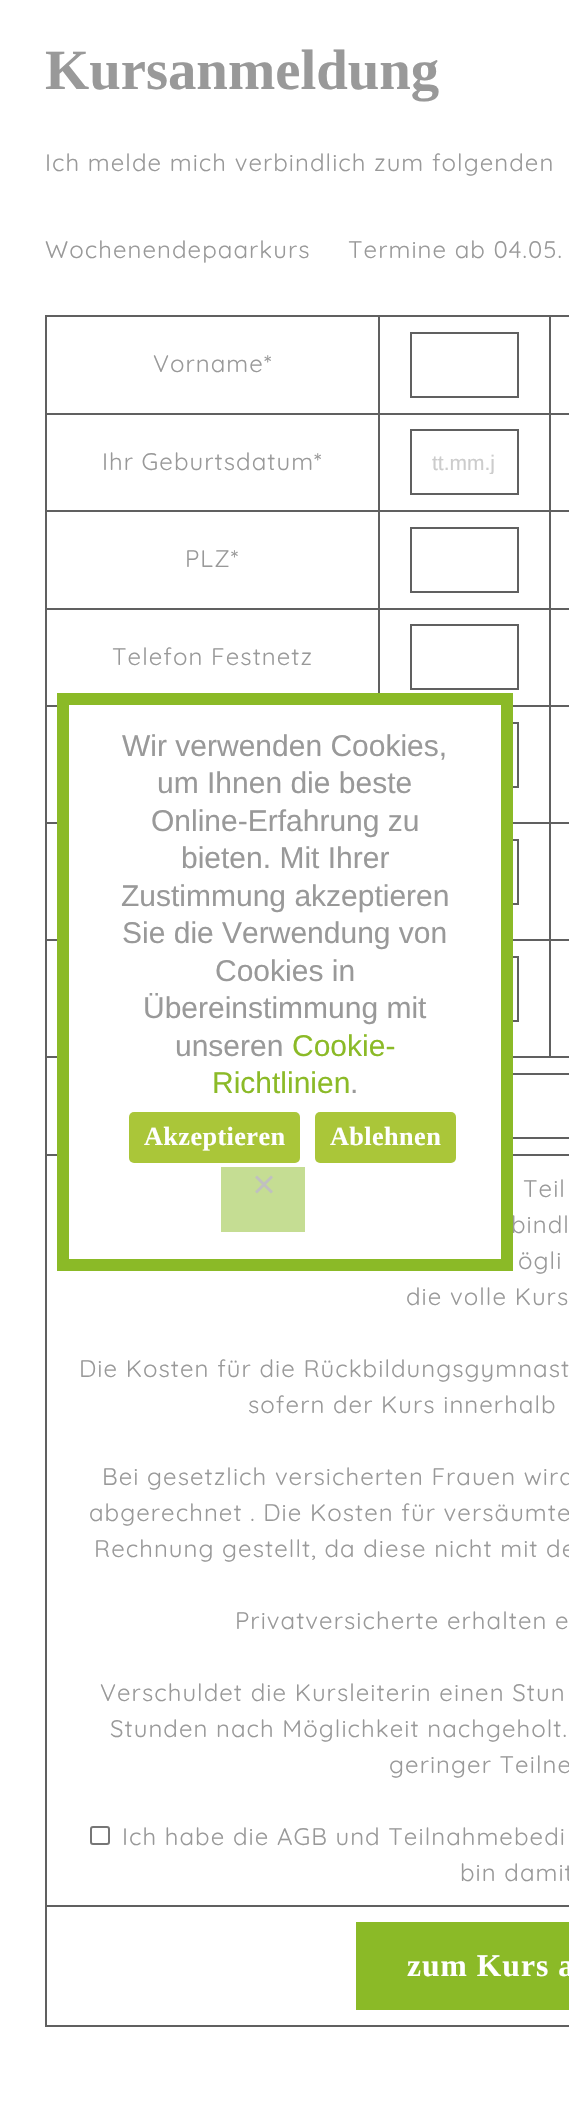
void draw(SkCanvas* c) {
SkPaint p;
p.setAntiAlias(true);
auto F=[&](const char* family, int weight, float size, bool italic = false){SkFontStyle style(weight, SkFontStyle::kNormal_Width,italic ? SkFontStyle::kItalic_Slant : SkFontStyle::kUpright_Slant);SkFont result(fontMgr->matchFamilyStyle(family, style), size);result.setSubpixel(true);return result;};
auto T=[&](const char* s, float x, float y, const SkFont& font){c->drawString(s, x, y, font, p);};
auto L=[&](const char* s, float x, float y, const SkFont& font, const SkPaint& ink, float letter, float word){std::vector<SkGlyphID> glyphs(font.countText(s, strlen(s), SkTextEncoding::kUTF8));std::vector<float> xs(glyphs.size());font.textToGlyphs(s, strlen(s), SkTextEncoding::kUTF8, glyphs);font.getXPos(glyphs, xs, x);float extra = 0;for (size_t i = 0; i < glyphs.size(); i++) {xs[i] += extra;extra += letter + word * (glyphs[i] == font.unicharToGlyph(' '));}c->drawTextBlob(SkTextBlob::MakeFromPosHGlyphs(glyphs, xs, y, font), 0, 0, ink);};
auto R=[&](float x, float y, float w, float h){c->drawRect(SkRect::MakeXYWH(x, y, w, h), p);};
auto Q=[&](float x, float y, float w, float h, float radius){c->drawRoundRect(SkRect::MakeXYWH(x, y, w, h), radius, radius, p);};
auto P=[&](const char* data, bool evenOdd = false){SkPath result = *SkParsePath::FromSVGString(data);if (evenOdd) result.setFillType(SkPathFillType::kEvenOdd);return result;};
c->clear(0xffffffff);
auto f1 = F("Liberation Serif",700,56.75);
p.setColor(0xff999999);
T("Kursanmeldung",45,89,f1);
auto f2 = F("Quicksand",400,24);
L("Ich melde mich verbindlich zum folgenden",45,171,f2,p,1.05,0);
L("Wochenendepaarkurs",45,258,f2,p,1.05,0);
L("Termine ab 04.05.",348,258,f2,p,1.05,0);
p.setColor(0xff606060);
R(45,315,524,2);
R(45,2025,524,2);
R(45,315,2,1712);
R(45,1056,524,2);
R(45,413,524,2);
R(45,510,524,2);
R(45,608,524,2);
R(45,705,524,2);
R(45,822,524,2);
R(45,939,524,2);
R(549,315,2,743);
p.setStroke(true);
p.setStrokeWidth(2);
c->drawRect(SkRect::MakeXYWH(411,957,107,64),p);
p.setStroke(false);
p.setColor(0xff999999);
L("Vorname*",153,372,f2,p,1.05,0);
p.setStroke(true);
p.setColor(0xff606060);
c->drawRect(SkRect::MakeXYWH(411,333,107,64),p);
p.setStroke(false);
p.setColor(0xff999999);
L("Ihr Geburtsdatum*",102,470,f2,p,1.05,0);
p.setStroke(true);
p.setColor(0xff606060);
c->drawRect(SkRect::MakeXYWH(411,430,107,64),p);
c->save();
c->clipRect(SkRect::MakeXYWH(432,450,65,24));
auto f3 = F("Liberation Sans",400,21);
p.setStroke(false);
p.setColor(0xffcccccc);
T("tt.mm.j",432,470,f3);
c->restore();
p.setColor(0xff999999);
L("PLZ*",185,567,f2,p,1.05,0);
p.setStroke(true);
p.setColor(0xff606060);
c->drawRect(SkRect::MakeXYWH(411,528,107,64),p);
p.setStroke(false);
R(378,315,2,378);
p.setColor(0xff999999);
L("Telefon Festnetz",112,665,f2,p,1.05,0);
p.setStroke(true);
p.setColor(0xff606060);
c->drawRect(SkRect::MakeXYWH(411,625,107,64),p);
c->drawRect(SkRect::MakeXYWH(411,723,107,64),p);
c->drawRect(SkRect::MakeXYWH(411,840,107,64),p);
p.setStroke(false);
R(45,1154,524,2);
p.setStroke(true);
c->drawRect(SkRect::MakeXYWH(78,1074,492,64),p);
p.setStroke(false);
R(45,1905,524,2);
p.setColor(0xff999999);
L("Teil",523,1197,f2,p,1.05,0);
L("bindl",511,1233,f2,p,1.05,0);
L("ögli",518,1269,f2,p,1.05,0);
L("die volle Kurs",406,1305,f2,p,1.05,0);
L("Die Kosten für die Rückbildungsgymnast",79,1377,f2,p,1.05,0);
L("sofern der Kurs innerhalb",248,1413,f2,p,1.05,0);
L("Bei gesetzlich versicherten Frauen wird",102,1485,f2,p,1.05,0);
L("abgerechnet . Die Kosten für versäumte",89,1521,f2,p,1.05,0);
L("Rechnung gestellt, da diese nicht mit de",94,1557,f2,p,1.05,0);
L("Privatversicherte erhalten e",235,1629,f2,p,1.05,0);
L("Verschuldet die Kursleiterin einen Stun",100,1701,f2,p,1.05,0);
L("Stunden nach Möglichkeit nachgeholt.",110,1737,f2,p,1.05,0);
L("geringer Teilne",389,1773,f2,p,1.05,0);
p.setStroke(true);
p.setColor(0xff767676);
c->drawRoundRect(SkRect::MakeXYWH(91,1827,18,17),2,2,p);
p.setStroke(false);
p.setColor(0xff999999);
L("Ich habe die AGB und Teilnahmebedi",122,1845,f2,p,1.05,0);
L("bin damit",460,1881,f2,p,1.05,0);
p.setColor(0xff8bba27);
R(356,1922,213,88);
auto f4 = F("Liberation Serif",700,31.5);
p.setColor(0xffffffff);
L("zum Kurs a",407,1976,f4,p,1.05,0);
R(69,705,432,451);
p.setStroke(true);
p.setStrokeWidth(12);
p.setColor(0xff8bba27);
c->drawRect(SkRect::MakeXYWH(63,699,444,566),p);
auto f5 = F("Liberation Sans",400,30);
p.setStroke(false);
p.setColor(0xff999999);
T("Wir verwenden Cookies,",122,756,f5);
T("um Ihnen die beste",157,793,f5);
T("Online-Erfahrung zu",151,831,f5);
T("bieten. Mit Ihrer",181,868,f5);
T("Zustimmung akzeptieren",121,906,f5);
T("Sie die Verwendung von",122,943,f5);
T("Cookies in",215,981,f5);
T("Übereinstimmung mit",143,1018,f5);
T("unseren",175,1056,f5);
p.setColor(0xff8bba27);
T("Cookie-",292,1056,f5);
T("Richtlinien",212,1093,f5);
p.setColor(0xff999999);
T(".",350,1093,f5);
p.setColor(0xffaac639);
Q(129,1112,171,51,5);
auto f6 = F("Liberation Serif",700,26.25);
p.setColor(0xffffffff);
L("Akzeptieren",144,1145,f6,p,.4,0);
p.setColor(0xffaac639);
Q(315,1112,141,51,5);
p.setColor(0xffffffff);
L("Ablehnen",330,1145,f6,p,.4,0);
p.setColor(0xffc5dd93);
R(221,1167,84,65);
p.setColor(0xffc0c0c0);
c->drawPath(P("M271 1175.5l2 2l-16 16l-2-2z"),p);
c->drawPath(P("M255 1177.5l2-2l16 16l-2 2z"),p);
}
